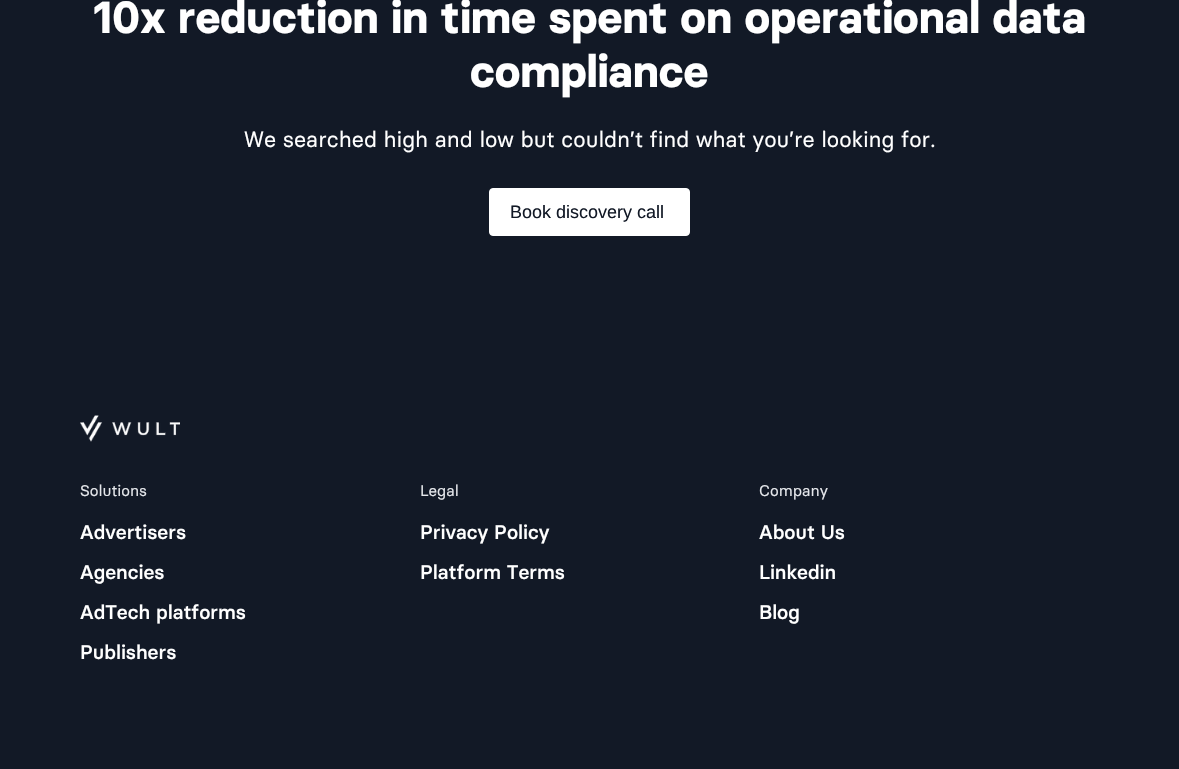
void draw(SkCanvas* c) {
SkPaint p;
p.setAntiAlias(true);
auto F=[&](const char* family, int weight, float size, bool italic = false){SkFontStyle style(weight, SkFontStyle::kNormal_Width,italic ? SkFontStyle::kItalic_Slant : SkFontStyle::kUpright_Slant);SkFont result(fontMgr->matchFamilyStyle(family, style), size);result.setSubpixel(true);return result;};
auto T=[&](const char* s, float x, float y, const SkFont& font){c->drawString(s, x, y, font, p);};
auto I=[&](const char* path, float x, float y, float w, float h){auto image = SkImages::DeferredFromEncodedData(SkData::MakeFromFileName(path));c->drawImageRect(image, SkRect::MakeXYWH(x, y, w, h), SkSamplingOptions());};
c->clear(0xff121926);
auto f1 = F("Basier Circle",700,44.8);
p.setColor(0xffffffff);
T("10x reduction in time spent on operational data",93,33,f1);
T("compliance",470,87,f1);
auto f2 = F("Basier Circle",400,22);
T("We searched high and low but couldn’t find what you’re looking for.",244,147,f2);
c->drawRoundRect(SkRect::MakeXYWH(489.5,188.5,200,47),3.5,3.5,p);
p.setStroke(true);
p.setStrokeWidth(1);
c->drawRoundRect(SkRect::MakeXYWH(489.5,188.5,200,47),3.5,3.5,p);
auto f3 = F("Liberation Sans",400,18);
p.setStroke(false);
p.setColor(0xff121926);
T("Book discovery call",510,218,f3);
I("1.png",80,415,100,27);
auto f4 = F("Basier Circle",400,15.5);
p.setColor(0xffe5e7eb);
T("Solutions",80,496,f4);
auto f5 = F("Basier Circle",500,19.75);
p.setColor(0xffffffff);
T("Advertisers",80,539,f5);
T("Agencies",80,579,f5);
T("AdTech platforms",80,619,f5);
T("Publishers",80,659,f5);
p.setColor(0xffe5e7eb);
T("Legal",420,496,f4);
p.setColor(0xffffffff);
T("Privacy Policy",420,539,f5);
T("Platform Terms",420,579,f5);
p.setColor(0xffe5e7eb);
T("Company",759,496,f4);
p.setColor(0xffffffff);
T("About Us",759,539,f5);
T("Linkedin",759,579,f5);
T("Blog",759,619,f5);
}
